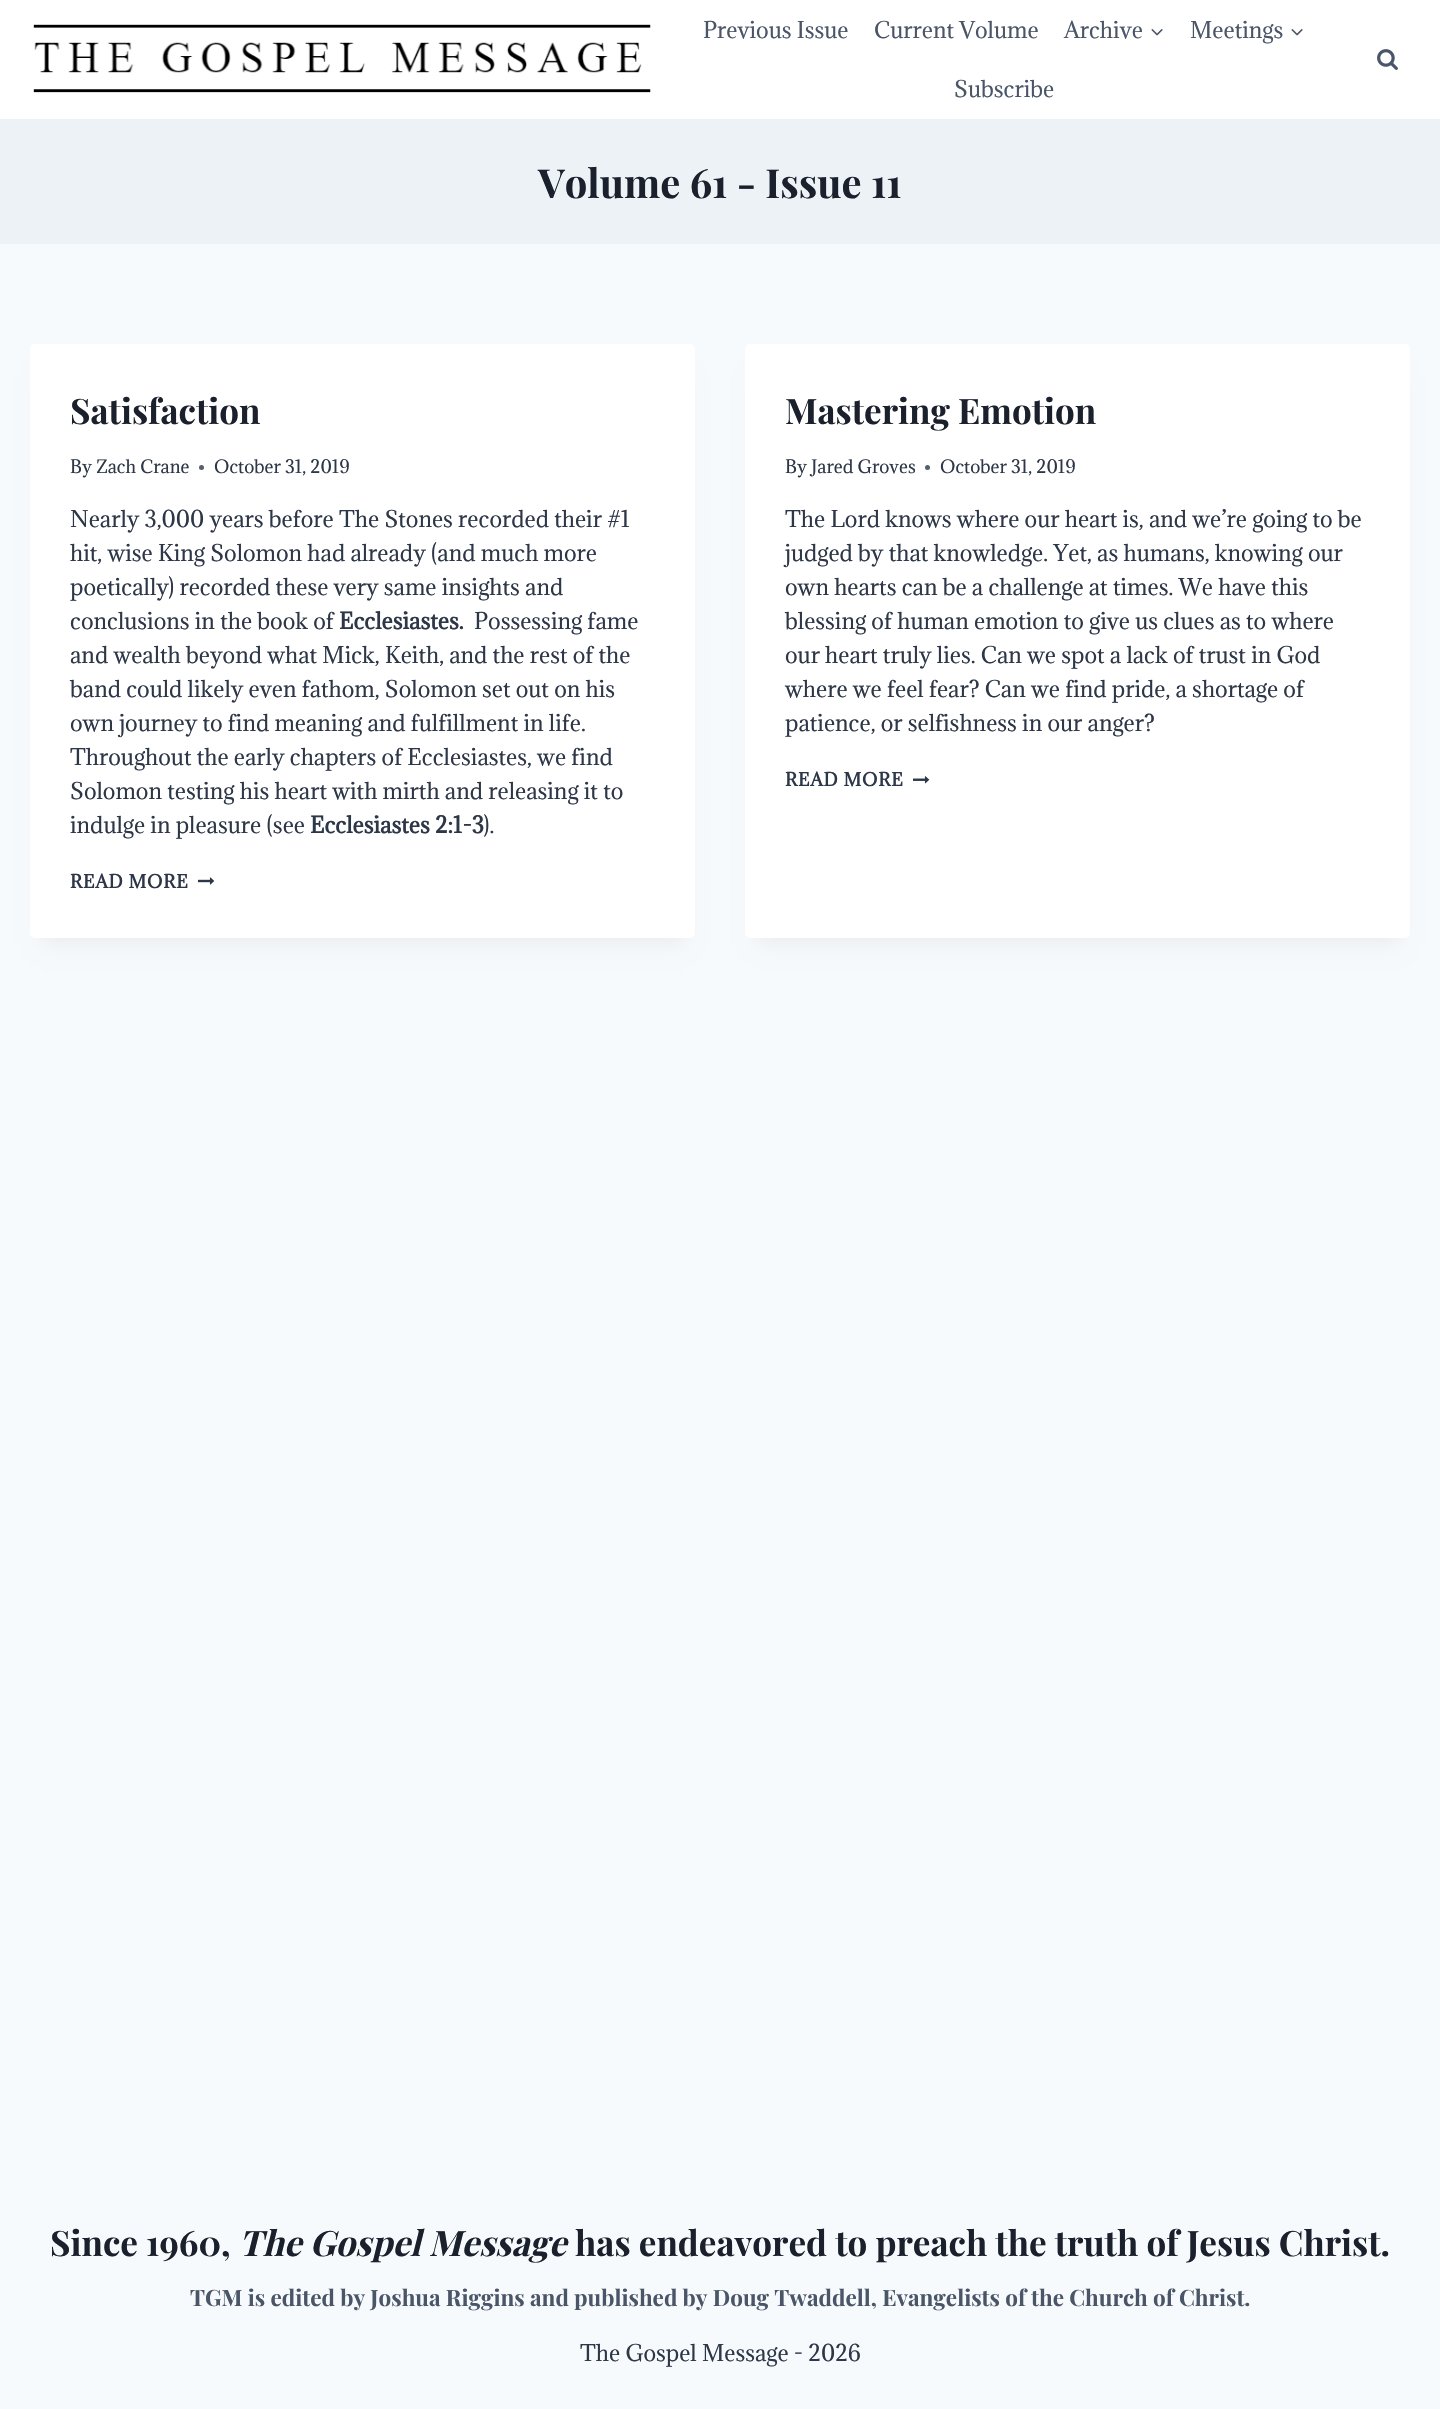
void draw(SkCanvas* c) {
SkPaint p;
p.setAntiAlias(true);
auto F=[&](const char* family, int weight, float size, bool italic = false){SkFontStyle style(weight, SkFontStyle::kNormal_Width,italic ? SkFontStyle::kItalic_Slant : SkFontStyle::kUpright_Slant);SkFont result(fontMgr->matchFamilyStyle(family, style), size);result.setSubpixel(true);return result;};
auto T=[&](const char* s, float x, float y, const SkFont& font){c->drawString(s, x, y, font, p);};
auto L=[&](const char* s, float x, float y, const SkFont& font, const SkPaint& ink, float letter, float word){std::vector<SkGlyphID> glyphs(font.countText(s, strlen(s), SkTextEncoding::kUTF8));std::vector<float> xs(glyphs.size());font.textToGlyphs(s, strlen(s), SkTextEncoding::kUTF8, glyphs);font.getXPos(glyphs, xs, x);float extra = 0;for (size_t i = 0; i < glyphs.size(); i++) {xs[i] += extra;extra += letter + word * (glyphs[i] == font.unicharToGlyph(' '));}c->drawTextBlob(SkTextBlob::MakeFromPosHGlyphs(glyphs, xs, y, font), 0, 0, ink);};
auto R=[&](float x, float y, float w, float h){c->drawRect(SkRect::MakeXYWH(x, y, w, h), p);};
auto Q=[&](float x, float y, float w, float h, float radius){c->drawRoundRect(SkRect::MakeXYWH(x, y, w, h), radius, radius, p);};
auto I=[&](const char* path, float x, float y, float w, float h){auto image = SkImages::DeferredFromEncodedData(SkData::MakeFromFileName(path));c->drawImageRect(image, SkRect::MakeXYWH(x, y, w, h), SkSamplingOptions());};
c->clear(0xfff7fafc);
p.setColor(0xffffffff);
R(0,0,1440,119);
I("1.png",33,24,618,69);
auto f1 = F("Adamina",400,21.25);
p.setColor(0xff4a5568);
T("Previous Issue",703,38,f1);
T("Current Volume",874,38,f1);
T("Archive",1064,38,f1);
I("2.png",1151,29,12,7);
T("Meetings",1190,38,f1);
I("2.png",1291,29,12,7);
T("Subscribe",954,97,f1);
I("3.png",1377,49,21,21);
p.setColor(0xffedf2f7);
R(0,119,1440,125);
auto f2 = F("Playfair Display",700,40);
p.setColor(0xff1a202c);
T("Volume 61 - Issue 11",538,198,f2);
p.setColor(0x0d000000);
p.setMaskFilter(SkMaskFilter::MakeBlur(kNormal_SkBlurStyle, 9.5));
c->drawRect(SkRect::MakeXYWH(43,375,640,569),p);
p.setMaskFilter(nullptr);
p.setColor(0xffffffff);
Q(30,344,665,594,5);
auto f3 = F("Playfair Display",700,35);
p.setColor(0xff1a202c);
T("Satisfaction",70,424,f3);
auto f4 = F("Adamina",400,17);
p.setColor(0xff2d3748);
T("By Zach Crane",70,473,f4);
p.setColor(0xff575f6d);
c->drawCircle(201.5,467.5,2.5,p);
p.setColor(0xff2d3748);
T("October 31, 2019",214,473,f4);
T("Nearly 3,000 years before The Stones recorded their #1",70,527,f1);
T("hit, wise King Solomon had already (and much more",70,561,f1);
T("poetically) recorded these very same insights and",70,595,f1);
T("conclusions in the book of",70,629,f1);
auto f5 = F("Adamina",700,21.25);
T("Ecclesiastes.",339,629,f5);
T("Possessing fame",474,629,f1);
T("and wealth beyond what Mick, Keith, and the rest of the",70,663,f1);
T("band could likely even fathom, Solomon set out on his",70,697,f1);
T("own journey to find meaning and fulfillment in life.",70,731,f1);
T("Throughout the early chapters of Ecclesiastes, we find",70,765,f1);
T("Solomon testing his heart with mirth and releasing it to",70,799,f1);
T("indulge in pleasure (see",70,833,f1);
T("Ecclesiastes 2:1-3",310,833,f5);
T(").",484,833,f1);
auto f6 = F("Adamina",700,17);
L("READ MORE",70,888,f6,p,.75,0);
I("4.png",198,877,17,8);
p.setColor(0x0d000000);
p.setMaskFilter(SkMaskFilter::MakeBlur(kNormal_SkBlurStyle, 9.5));
c->drawRect(SkRect::MakeXYWH(758,375,640,569),p);
p.setMaskFilter(nullptr);
p.setColor(0xffffffff);
Q(745,344,665,594,5);
p.setColor(0xff1a202c);
T("Mastering Emotion",785,424,f3);
p.setColor(0xff2d3748);
T("By Jared Groves",785,473,f4);
p.setColor(0xff575f6d);
c->drawCircle(927.5,467.5,2.5,p);
p.setColor(0xff2d3748);
T("October 31, 2019",940,473,f4);
T("The Lord knows where our heart is, and we’re going to be",785,527,f1);
T("judged by that knowledge. Yet, as humans, knowing our",785,561,f1);
T("own hearts can be a challenge at times. We have this",785,595,f1);
T("blessing of human emotion to give us clues as to where",785,629,f1);
T("our heart truly lies. Can we spot a lack of trust in God",785,663,f1);
T("where we feel fear? Can we find pride, a shortage of",785,697,f1);
T("patience, or selfishness in our anger?",785,731,f1);
L("READ MORE",785,786,f6,p,.75,0);
I("5.png",913,776,17,8);
p.setColor(0xff1a202c);
T("Since 1960,",50,2256,f3);
auto f7 = F("Playfair Display",700,35,true);
T("The Gospel Message",239,2256,f7);
T("has endeavored to preach the truth of Jesus Christ.",575,2256,f3);
auto f8 = F("Playfair Display",700,22.5);
p.setColor(0xff4a5568);
T("TGM is edited by Joshua Riggins and published by Doug Twaddell, Evangelists of the Church of Christ.",190,2306,f8);
p.setColor(0xff2d3748);
T("The Gospel Message - 2026",580,2361,f1);
}
